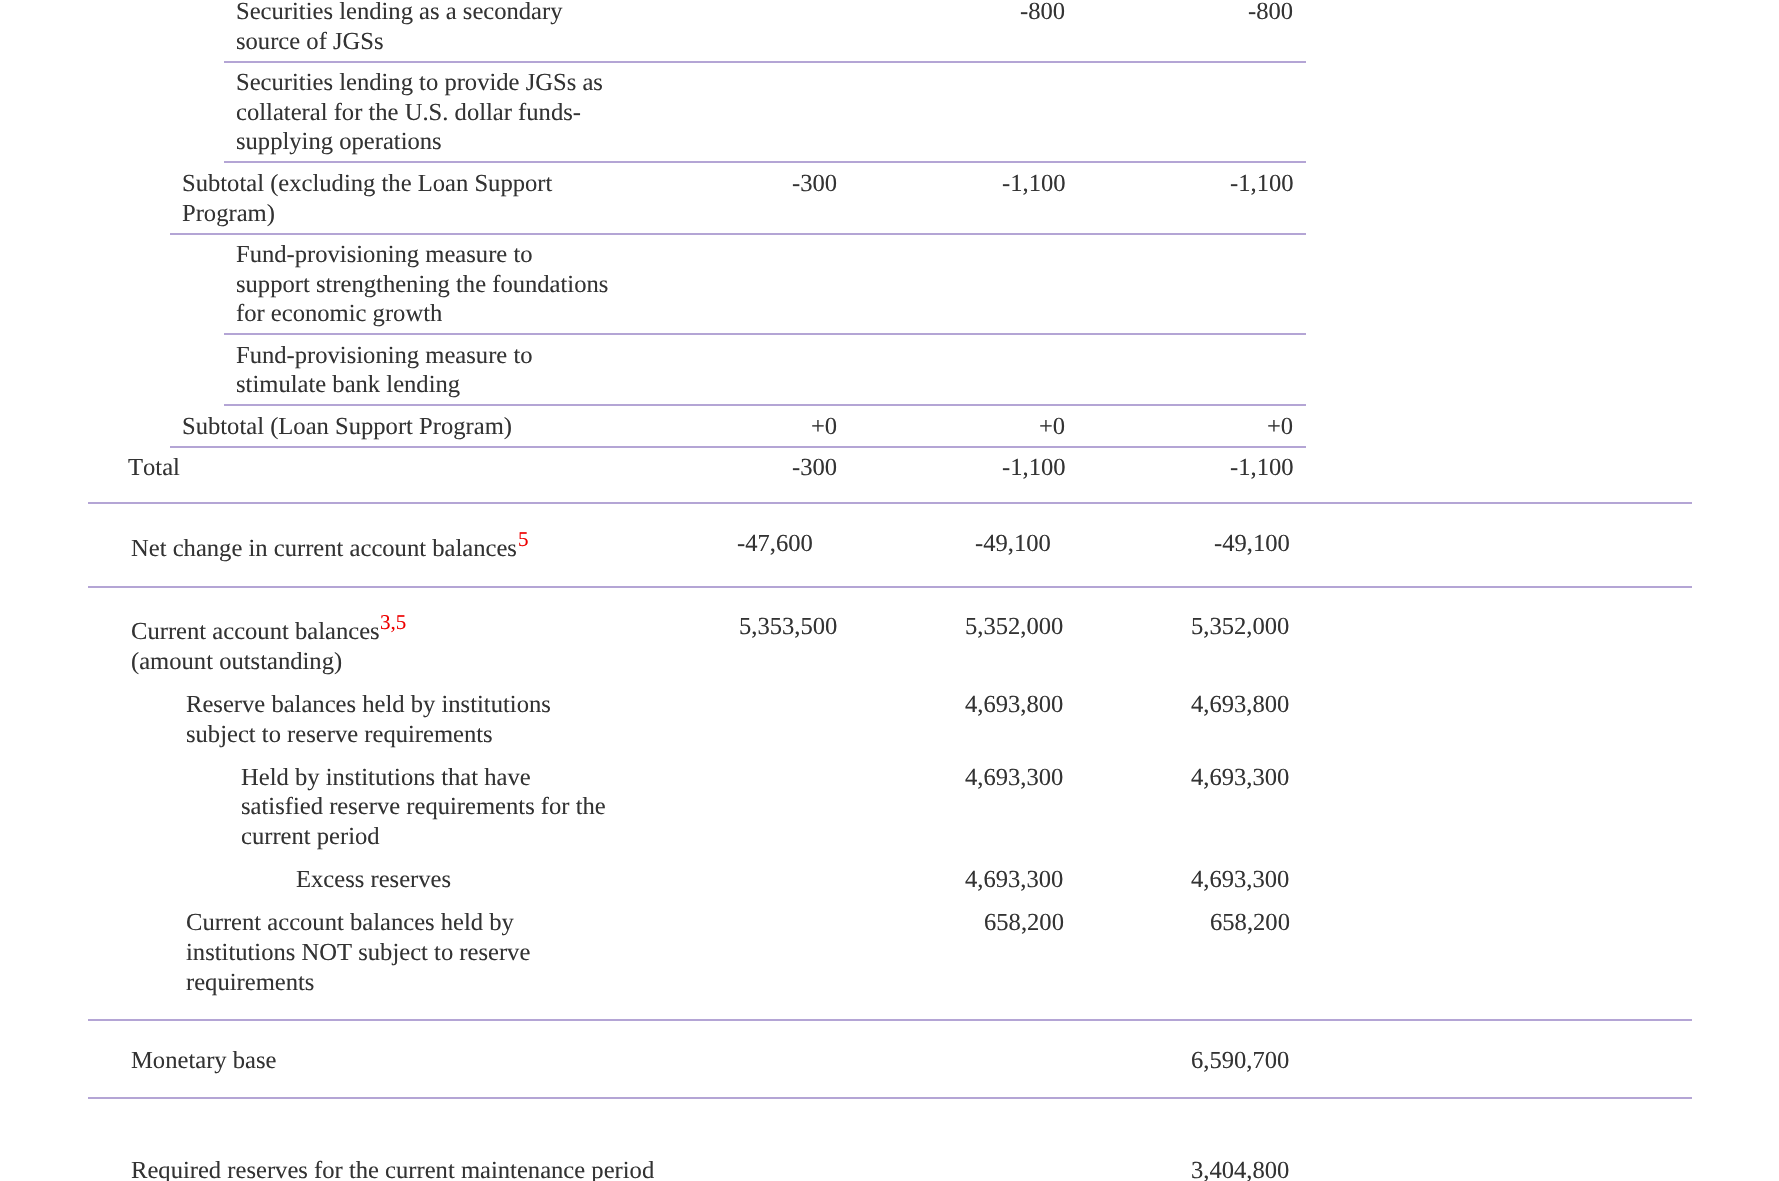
void draw(SkCanvas* c) {
SkPaint p;
p.setAntiAlias(true);
auto F=[&](const char* family, int weight, float size, bool italic = false){SkFontStyle style(weight, SkFontStyle::kNormal_Width,italic ? SkFontStyle::kItalic_Slant : SkFontStyle::kUpright_Slant);SkFont result(fontMgr->matchFamilyStyle(family, style), size);result.setSubpixel(true);return result;};
auto T=[&](const char* s, float x, float y, const SkFont& font){c->drawString(s, x, y, font, p);};
auto R=[&](float x, float y, float w, float h){c->drawRect(SkRect::MakeXYWH(x, y, w, h), p);};
c->clear(0xffffffff);
p.setColor(0xffb4a5d5);
R(224,61,1082,2);
auto f1 = F("Liberation Serif",400,24.6);
p.setColor(0xff333333);
T("Securities lending as a secondary",236,19,f1);
T("source of JGSs",236,49,f1);
T("-800",1020,19,f1);
T("-800",1248,19,f1);
p.setColor(0xffb4a5d5);
R(224,161,1082,2);
p.setColor(0xff333333);
T("Securities lending to provide JGSs as",236,90,f1);
T("collateral for the U.S. dollar funds-",236,120,f1);
T("supplying operations",236,149,f1);
p.setColor(0xffb4a5d5);
R(170,233,1136,2);
p.setColor(0xff333333);
T("Subtotal (excluding the Loan Support",182,191,f1);
T("Program)",182,221,f1);
T("-300",792,191,f1);
T("-1,100",1002,191,f1);
T("-1,100",1230,191,f1);
p.setColor(0xffb4a5d5);
R(224,333,1082,2);
p.setColor(0xff333333);
T("Fund-provisioning measure to",236,262,f1);
T("support strengthening the foundations",236,292,f1);
T("for economic growth",236,321,f1);
p.setColor(0xffb4a5d5);
R(224,404,1082,2);
p.setColor(0xff333333);
T("Fund-provisioning measure to",236,363,f1);
T("stimulate bank lending",236,392,f1);
p.setColor(0xffb4a5d5);
R(170,446,1136,2);
p.setColor(0xff333333);
T("Subtotal (Loan Support Program)",182,434,f1);
T("+0",811,434,f1);
T("+0",1039,434,f1);
T("+0",1267,434,f1);
T("Total",128,475,f1);
T("-300",792,475,f1);
T("-1,100",1002,475,f1);
T("-1,100",1230,475,f1);
p.setColor(0xffb4a5d5);
R(88,502,1604,2);
p.setColor(0xff333333);
T("Net change in current account balances",131,556,f1);
auto f2 = F("Liberation Serif",400,21);
p.setColor(0xffee0000);
T("5",518,546,f2);
p.setColor(0xff333333);
T("-47,600",737,551,f1);
T("-49,100",975,551,f1);
T("-49,100",1214,551,f1);
p.setColor(0xffb4a5d5);
R(88,586,1604,2);
p.setColor(0xff333333);
T("Current account balances",131,639,f1);
p.setColor(0xffee0000);
T("3,5",380,629,f2);
p.setColor(0xff333333);
T("(amount outstanding)",131,669,f1);
T("5,353,500",739,634,f1);
T("5,352,000",965,634,f1);
T("5,352,000",1191,634,f1);
T("Reserve balances held by institutions",186,712,f1);
T("subject to reserve requirements",186,742,f1);
T("4,693,800",965,712,f1);
T("4,693,800",1191,712,f1);
T("Held by institutions that have",241,785,f1);
T("satisfied reserve requirements for the",241,814,f1);
T("current period",241,844,f1);
T("4,693,300",965,785,f1);
T("4,693,300",1191,785,f1);
T("Excess reserves",296,887,f1);
T("4,693,300",965,887,f1);
T("4,693,300",1191,887,f1);
T("Current account balances held by",186,930,f1);
T("institutions NOT subject to reserve",186,960,f1);
T("requirements",186,990,f1);
T("658,200",984,930,f1);
T("658,200",1210,930,f1);
p.setColor(0xffb4a5d5);
R(88,1019,1604,2);
p.setColor(0xff333333);
T("Monetary base",131,1068,f1);
T("6,590,700",1191,1068,f1);
p.setColor(0xffb4a5d5);
R(88,1097,1604,2);
p.setColor(0xff333333);
T("Required reserves for the current maintenance period",131,1178,f1);
T("3,404,800",1191,1178,f1);
}
